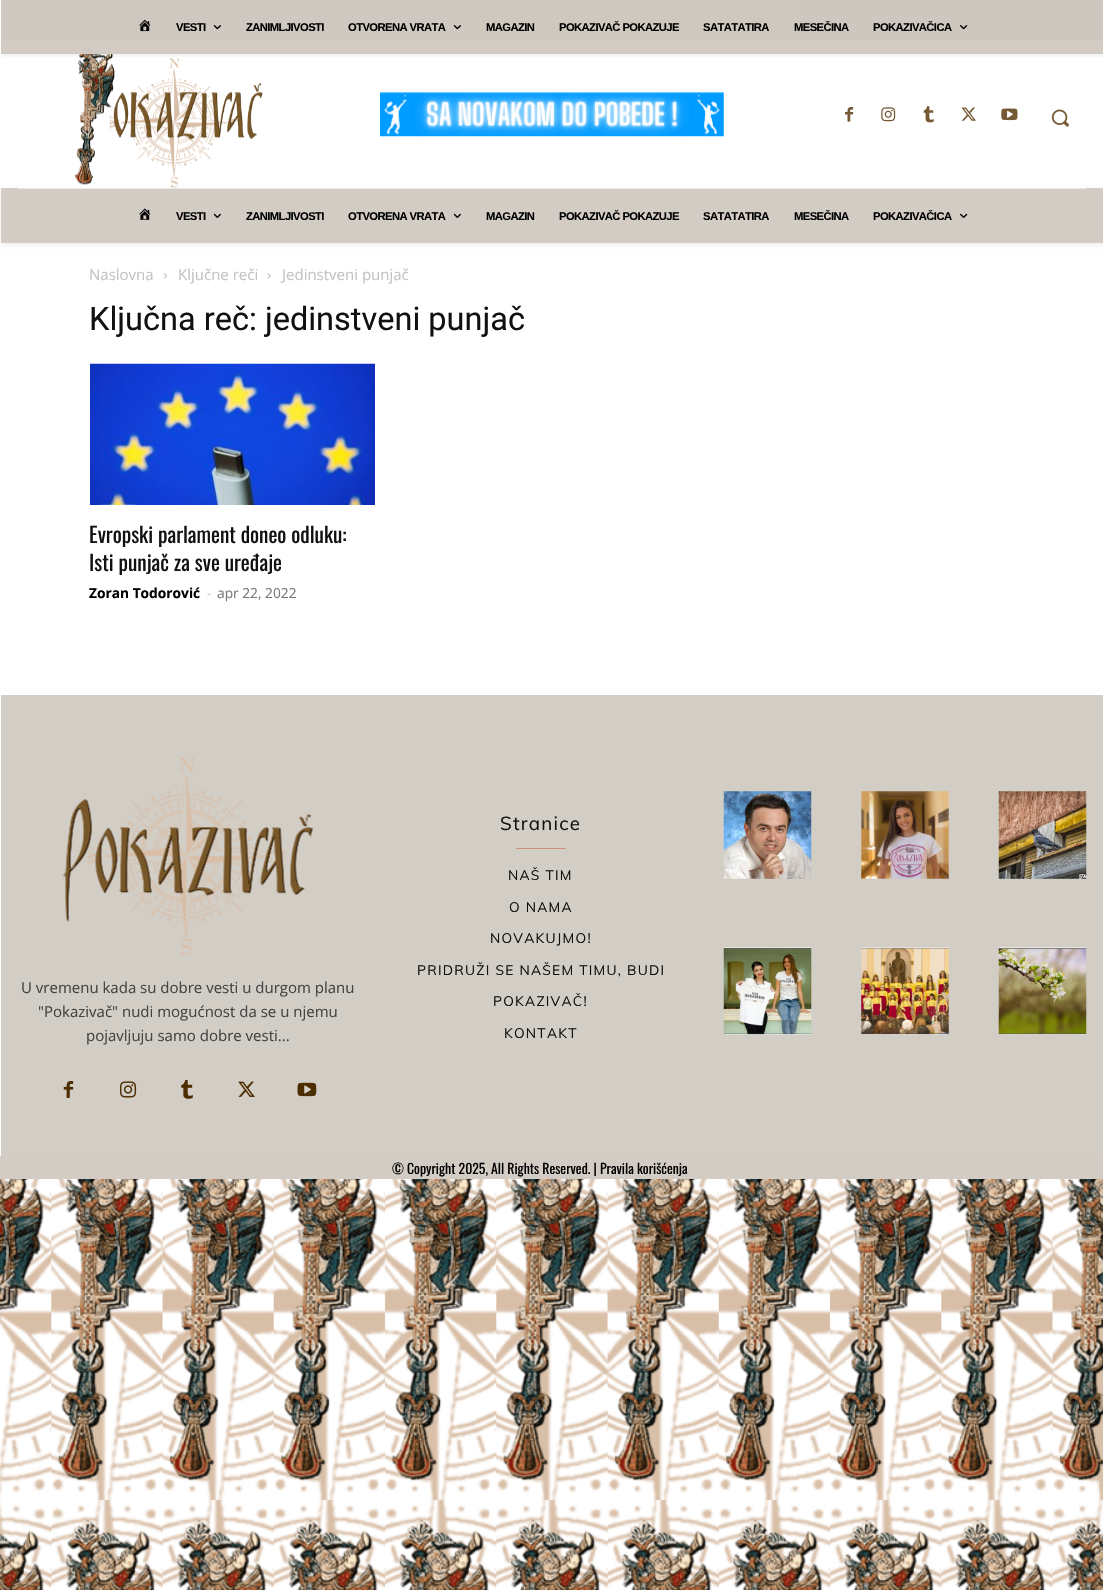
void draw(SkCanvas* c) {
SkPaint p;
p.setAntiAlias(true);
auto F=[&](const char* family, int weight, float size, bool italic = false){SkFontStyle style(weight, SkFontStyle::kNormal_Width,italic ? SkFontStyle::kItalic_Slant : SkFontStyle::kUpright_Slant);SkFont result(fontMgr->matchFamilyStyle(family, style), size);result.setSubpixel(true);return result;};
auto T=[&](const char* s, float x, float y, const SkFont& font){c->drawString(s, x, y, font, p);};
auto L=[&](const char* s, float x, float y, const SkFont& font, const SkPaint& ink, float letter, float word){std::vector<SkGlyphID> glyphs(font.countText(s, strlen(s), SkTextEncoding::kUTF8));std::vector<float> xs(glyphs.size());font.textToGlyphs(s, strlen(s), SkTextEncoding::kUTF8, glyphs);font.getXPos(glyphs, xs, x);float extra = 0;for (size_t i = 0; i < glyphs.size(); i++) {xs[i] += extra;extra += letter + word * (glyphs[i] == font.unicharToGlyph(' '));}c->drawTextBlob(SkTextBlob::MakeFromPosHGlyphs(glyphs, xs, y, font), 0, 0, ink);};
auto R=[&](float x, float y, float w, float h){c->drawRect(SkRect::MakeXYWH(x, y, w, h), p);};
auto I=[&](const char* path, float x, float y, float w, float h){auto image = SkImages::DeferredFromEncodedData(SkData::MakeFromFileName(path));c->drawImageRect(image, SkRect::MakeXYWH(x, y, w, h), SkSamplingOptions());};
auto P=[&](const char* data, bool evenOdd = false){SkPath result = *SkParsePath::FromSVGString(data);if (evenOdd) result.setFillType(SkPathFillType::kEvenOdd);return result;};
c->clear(0xffffffff);
I("1.png",0,1179,1103,411);
{
const SkColor colors[] = {0xff020b07,0xff745934};
const float stops[] = {0,1};
const SkPoint ends[] = {{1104,20}, {.6,20}};
p.setShader(SkGradientShader::MakeLinear(ends, colors, stops, 2, SkTileMode::kClamp));
p.setAlpha(255);
}
R(1,0,1102,40);
I("6.png",75,46,188,142);
p.setShader(nullptr);
p.setColor(0xf7ffffff);
R(1,0,1102,54);
p.setColor(0x52726149);
R(1,0,1102,54);
c->save();
c->clipRect(SkRect::MakeXYWH(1,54,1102,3));
p.setColor(0x0f000000);
p.setMaskFilter(SkMaskFilter::MakeBlur(kNormal_SkBlurStyle, 2.5));
c->drawRect(SkRect::MakeXYWH(1,3,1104,53),p);
p.setMaskFilter(nullptr);
c->restore();
I("2.png",139,19,12,13);
auto f1 = F("Liberation Sans",700,11.25);
p.setColor(0xff000000);
L("VESTI",176,31,f1,p,-.6,0);
I("3.png",213,25,8,5);
L("ZANIMLJIVOSTI",246,31,f1,p,-.6,0);
L("OTVORENA VRATA",348,31,f1,p,-.6,0);
I("4.png",453,25,8,5);
L("MAGAZIN",486,31,f1,p,-.6,0);
L("POKAZIVAČ POKAZUJE",559,31,f1,p,-.6,0);
L("SATATATIRA",703,31,f1,p,-.6,0);
L("MESEČINA",794,31,f1,p,-.6,0);
L("POKAZIVAČICA",873,31,f1,p,-.6,0);
I("5.png",960,25,8,5);
I("7.png",380,92,344,45);
I("8.png",845,107,9,15);
I("9.png",881,107,15,15);
I("10.png",923,106,11,17);
I("11.png",961,107,15,14);
I("12.png",1001,108,17,13);
I("13.png",1051,109,18,18);
p.setColor(0xffd2ccc5);
R(1,188,1102,55);
p.setColor(0xffeaeaea);
R(18,188,1068,1);
c->save();
c->clipPath(P("M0 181h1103v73h-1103zm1 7h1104v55h-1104z",true),true);
p.setColor(0x0f000000);
p.setMaskFilter(SkMaskFilter::MakeBlur(kNormal_SkBlurStyle, 2.5));
c->drawRect(SkRect::MakeXYWH(1,190,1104,55),p);
p.setMaskFilter(nullptr);
c->restore();
I("14.png",139,208,12,12);
p.setColor(0xff000000);
L("VESTI",176,220,f1,p,-.6,0);
I("15.png",213,213,8,5);
L("ZANIMLJIVOSTI",246,220,f1,p,-.6,0);
L("OTVORENA VRATA",348,220,f1,p,-.6,0);
I("15.png",453,213,8,5);
L("MAGAZIN",486,220,f1,p,-.6,0);
L("POKAZIVAČ POKAZUJE",559,220,f1,p,-.6,0);
L("SATATATIRA",703,220,f1,p,-.6,0);
L("MESEČINA",794,220,f1,p,-.6,0);
L("POKAZIVAČICA",873,220,f1,p,-.6,0);
I("16.png",960,213,8,5);
auto f2 = F("Open Sans",400,15);
p.setColor(0xffc3c3c3);
T("Naslovna",89,280,f2);
I("17.png",163,272,4,7);
T("Ključne reči",178,280,f2);
I("18.png",267,273,4,6);
T("Jedinstveni punjač",282,280,f2);
auto f3 = F("Roboto",400,32.5);
p.setColor(0xff111111);
T("Ključna reč: jedinstveni punjač",89,330,f3);
I("19.png",90,363,285,142);
auto f4 = F("Oswald",400,21.25);
T("Evropski parlament doneo odluku:",89,543,f4);
T("Isti punjač za sve uređaje",89,571,f4);
auto f5 = F("Open Sans",700,13.75);
p.setColor(0xff000000);
T("Zoran Todorović",89,598,f5);
auto f6 = F("Open Sans",400,13.75);
p.setColor(0xffcccccc);
T("-",207,598,f6);
p.setColor(0xff767676);
T("apr 22, 2022",217,598,f6);
p.setColor(0xffd2cdc5);
R(1,695,1102,461);
I("20.png",62,757,251,198);
p.setColor(0xff444444);
T("U vremenu kada su dobre vesti u durgom planu",21,993,f2);
T("\"Pokazivač\" nudi mogućnost da se u njemu",38,1017,f2);
T("pojavljuju samo dobre vesti...",86,1041,f2);
I("21.png",63,1081,11,17);
I("22.png",120,1081,17,17);
I("23.png",181,1080,12,19);
I("24.png",238,1081,17,16);
I("25.png",297,1082,20,15);
auto f7 = F("Muli",400,18.75);
p.setColor(0xff111111);
L("Stranice",500,830,f7,p,1.25,0);
p.setColor(0xffce9079);
R(516,848,50,1);
auto f8 = F("Muli",400,13.75);
p.setColor(0xff111111);
L("NAŠ TIM",508,880,f8,p,1.25,0);
L("O NAMA",509,912,f8,p,1.25,0);
L("NOVAKUJMO!",490,943,f8,p,1.25,0);
L("PRIDRUŽI SE NAŠEM TIMU, BUDI",417,975,f8,p,1.25,0);
L("POKAZIVAČ!",493,1006,f8,p,1.25,0);
L("KONTAKT",504,1038,f8,p,1.25,0);
I("26.png",723,791,89,88);
I("27.png",861,791,88,88);
I("28.png",998,791,89,88);
I("29.png",723,947,89,88);
I("30.png",861,947,88,88);
I("31.png",998,947,89,88);
p.setColor(0xffd2ccc5);
R(0,1156,1103,23);
auto f9 = F("Oswald",400,13.75);
p.setColor(0xff000000);
T("© Copyright 2025, All Rights Reserved. | Pravila korišćenja",392,1174,f9);
}
